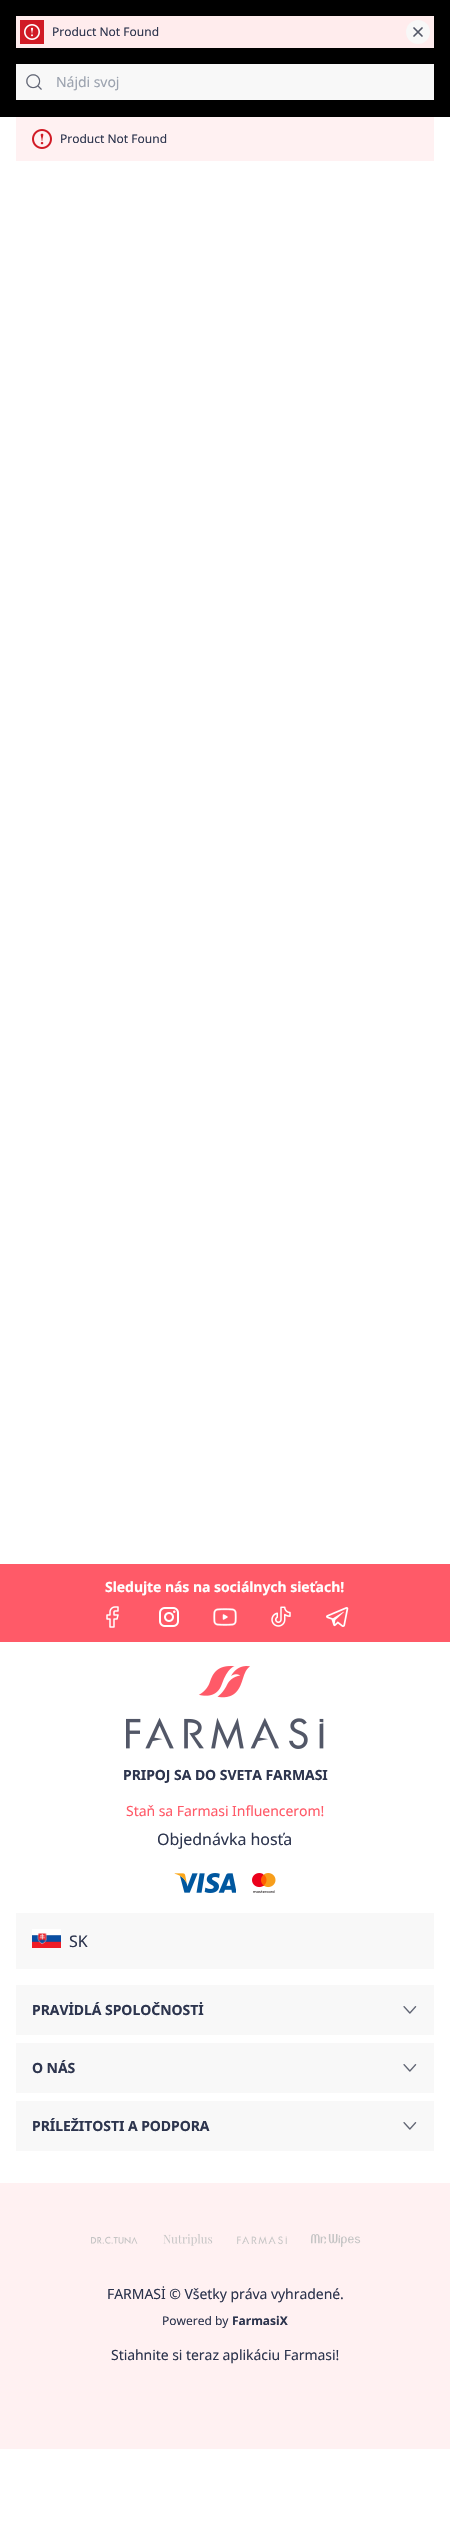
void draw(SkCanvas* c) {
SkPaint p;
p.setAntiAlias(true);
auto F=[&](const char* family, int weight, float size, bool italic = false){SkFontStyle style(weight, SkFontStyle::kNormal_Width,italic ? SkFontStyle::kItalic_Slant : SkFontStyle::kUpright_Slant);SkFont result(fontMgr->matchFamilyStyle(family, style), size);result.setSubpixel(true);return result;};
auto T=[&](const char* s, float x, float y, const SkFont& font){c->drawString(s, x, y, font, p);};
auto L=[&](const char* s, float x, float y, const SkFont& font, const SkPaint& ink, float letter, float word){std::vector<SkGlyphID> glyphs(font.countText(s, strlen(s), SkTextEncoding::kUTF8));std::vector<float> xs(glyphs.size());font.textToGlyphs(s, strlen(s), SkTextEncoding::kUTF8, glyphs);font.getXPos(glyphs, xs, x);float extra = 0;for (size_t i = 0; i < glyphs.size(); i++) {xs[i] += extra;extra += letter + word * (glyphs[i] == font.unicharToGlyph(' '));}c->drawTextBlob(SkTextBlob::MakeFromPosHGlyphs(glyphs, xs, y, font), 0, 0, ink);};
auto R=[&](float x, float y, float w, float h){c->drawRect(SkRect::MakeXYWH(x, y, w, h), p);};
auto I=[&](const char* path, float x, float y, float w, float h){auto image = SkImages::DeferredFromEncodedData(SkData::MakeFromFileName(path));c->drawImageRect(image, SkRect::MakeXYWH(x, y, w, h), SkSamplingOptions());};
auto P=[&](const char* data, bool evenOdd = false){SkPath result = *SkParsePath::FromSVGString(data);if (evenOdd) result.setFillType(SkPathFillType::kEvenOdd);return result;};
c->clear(0xffffffff);
p.setColor(0xff000000);
R(0,0,450,117);
p.setColor(0xffffeced);
R(16,16,418,32);
p.setColor(0xffd11a25);
R(20,20,24,24);
I("1.png",24,24,16,16);
auto f1 = F("Noto Sans",400,12);
p.setColor(0xff2d354e);
T("Product Not Found",52,36,f1);
p.setColor(0xfff8f8f8);
c->drawCircle(418,32,12,p);
p.setStroke(true);
p.setStrokeWidth(1.7);
p.setStrokeCap(SkPaint::kRound_Cap);
p.setStrokeJoin(SkPaint::kRound_Join);
p.setColor(0xff525767);
c->drawPath(P("M422 28l-8 8m0-8l8 8"),p);
p.setStroke(false);
p.setColor(0xfffff1f2);
R(16,117,418,44);
I("2.png",32,129,20,20);
p.setColor(0xff2d354e);
T("Product Not Found",60,143,f1);
p.setColor(0xfff8f8f8);
R(16,64,418,36);
I("3.png",26,74,16,16);
auto f2 = F("Noto Sans",400,14);
p.setColor(0xff9ca3af);
L("Nájdi svoj",56,87,f2,p,-.05,0);
p.setColor(0xffff5a68);
R(0,1564,450,78);
auto f3 = F("Noto Sans",700,14);
p.setColor(0xffffffff);
L("Sledujte nás na sociálnych sieťach!",105,1592,f3,p,-.05,0);
I("4.png",106,1606,13,22);
I("5.png",159,1607,20,20);
I("6.png",213,1608,24,18);
I("7.png",271,1606,20,21);
I("8.png",326,1607,23,20);
I("9.png",126,1666,198,83);
p.setColor(0xff2d354e);
L("PRIPOJ SA DO SVETA FARMASI",123,1780,f3,p,-.05,0);
p.setColor(0xffff5a68);
L("Staň sa Farmasi Influencerom!",126,1816,f2,p,-.05,0);
auto f4 = F("Noto Sans",400,16);
p.setColor(0xff2d354e);
L("Objednávka hosťa",157,1845,f4,p,-.05,0);
I("10.png",174,1873,62,20);
I("11.png",252,1873,24,20);
p.setColor(0xfff8f8f8);
R(16,1913,418,56);
I("12.png",32,1929,29,19);
p.setColor(0xff2d354e);
T("SK",69,1947,f4);
p.setColor(0xfff8f8f8);
R(16,1985,418,50);
p.setColor(0xff2d354e);
L("PRAVİDLÁ SPOLOČNOSTİ",32,2015,f3,p,-.05,0);
I("13.png",403,2006,14,8);
p.setColor(0xfff8f8f8);
R(16,2043,418,50);
p.setColor(0xff2d354e);
L("O NÁS",32,2073,f3,p,-.05,0);
I("13.png",403,2064,14,8);
p.setColor(0xfff8f8f8);
R(16,2101,418,50);
p.setColor(0xff2d354e);
L("PRÍLEŽITOSTI A PODPORA",32,2131,f3,p,-.05,0);
I("13.png",403,2122,14,8);
p.setColor(0xfffff1f2);
R(0,2183,450,266);
I("14.png",91,2236,47,8);
I("15.png",163,2234,50,12);
I("16.png",237,2236,50,9);
I("17.png",311,2234,50,13);
p.setColor(0xff2d354e);
L("FARMASİ © Všetky práva vyhradené.",107,2299,f2,p,-.05,0);
T("Powered by",162,2325,f1);
auto f5 = F("Noto Sans",700,12);
T("FarmasiX",232,2325,f5);
L("Stiahnite si teraz aplikáciu Farmasi!",111,2360,f2,p,-.05,0);
}
